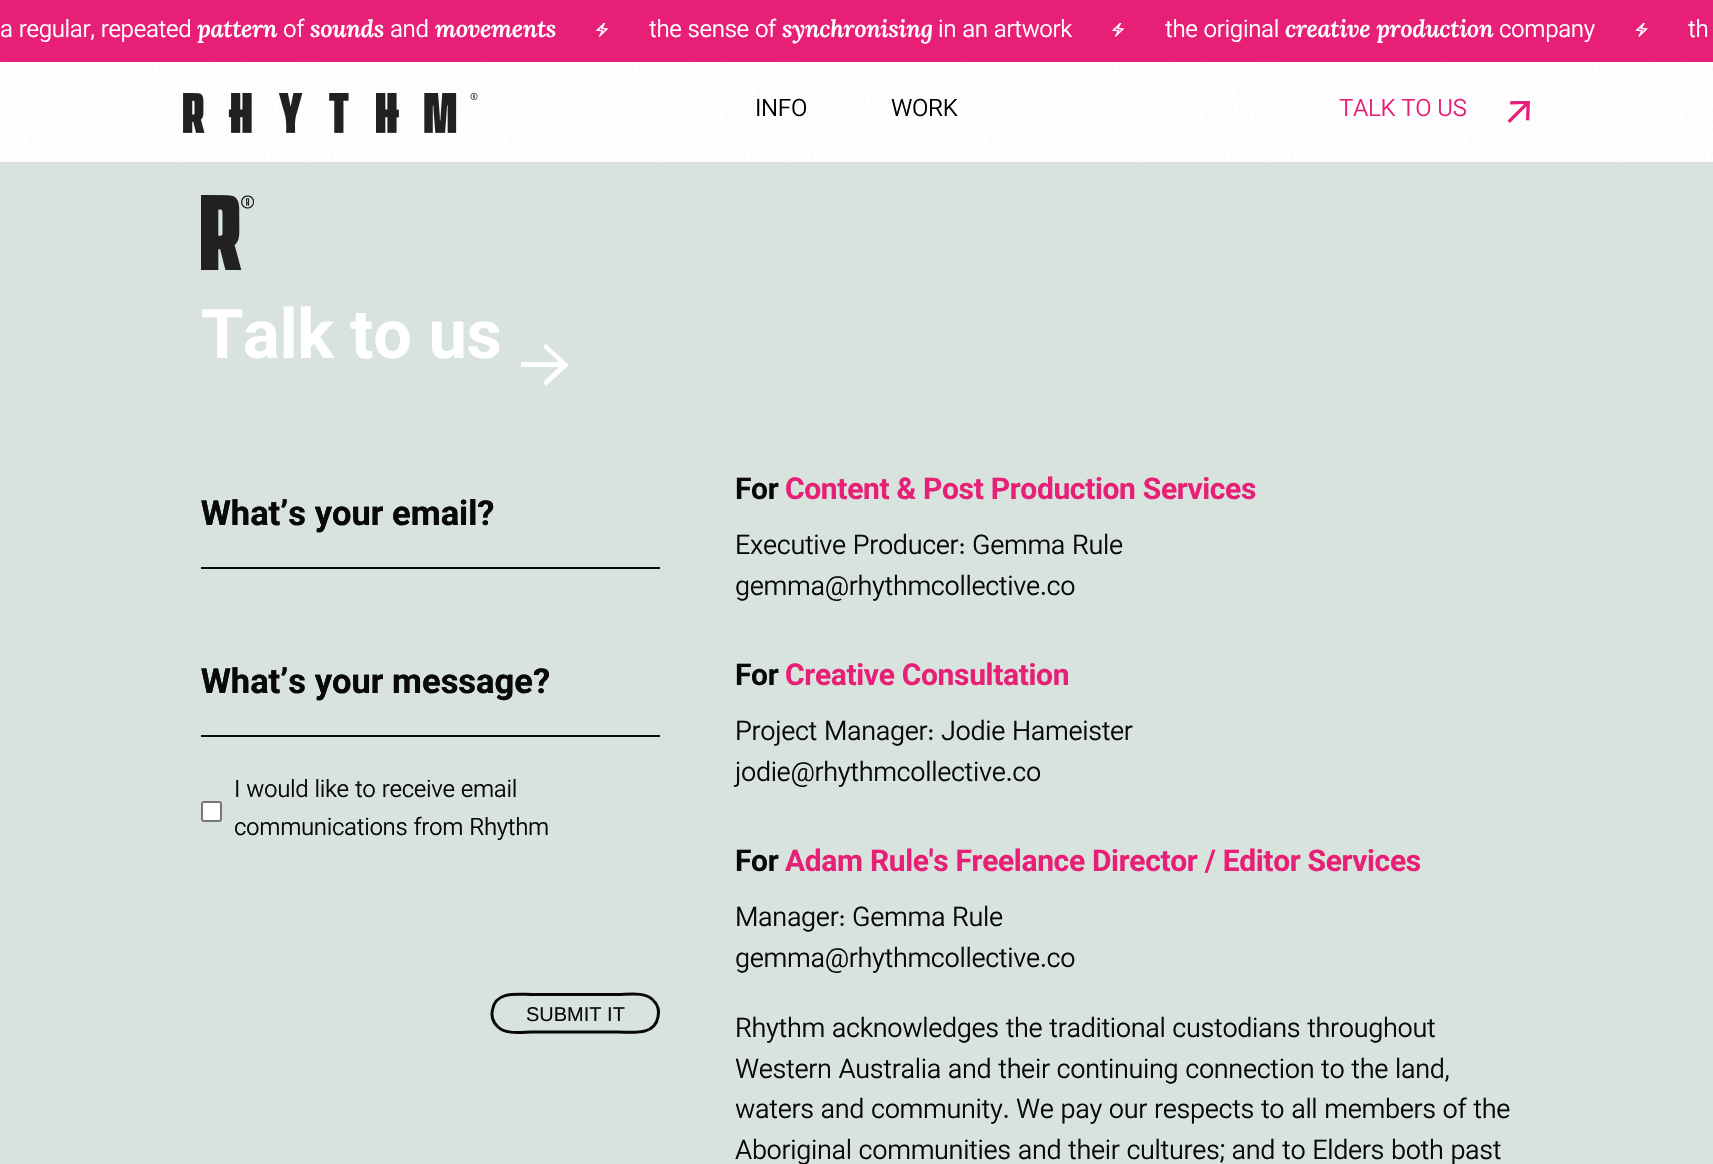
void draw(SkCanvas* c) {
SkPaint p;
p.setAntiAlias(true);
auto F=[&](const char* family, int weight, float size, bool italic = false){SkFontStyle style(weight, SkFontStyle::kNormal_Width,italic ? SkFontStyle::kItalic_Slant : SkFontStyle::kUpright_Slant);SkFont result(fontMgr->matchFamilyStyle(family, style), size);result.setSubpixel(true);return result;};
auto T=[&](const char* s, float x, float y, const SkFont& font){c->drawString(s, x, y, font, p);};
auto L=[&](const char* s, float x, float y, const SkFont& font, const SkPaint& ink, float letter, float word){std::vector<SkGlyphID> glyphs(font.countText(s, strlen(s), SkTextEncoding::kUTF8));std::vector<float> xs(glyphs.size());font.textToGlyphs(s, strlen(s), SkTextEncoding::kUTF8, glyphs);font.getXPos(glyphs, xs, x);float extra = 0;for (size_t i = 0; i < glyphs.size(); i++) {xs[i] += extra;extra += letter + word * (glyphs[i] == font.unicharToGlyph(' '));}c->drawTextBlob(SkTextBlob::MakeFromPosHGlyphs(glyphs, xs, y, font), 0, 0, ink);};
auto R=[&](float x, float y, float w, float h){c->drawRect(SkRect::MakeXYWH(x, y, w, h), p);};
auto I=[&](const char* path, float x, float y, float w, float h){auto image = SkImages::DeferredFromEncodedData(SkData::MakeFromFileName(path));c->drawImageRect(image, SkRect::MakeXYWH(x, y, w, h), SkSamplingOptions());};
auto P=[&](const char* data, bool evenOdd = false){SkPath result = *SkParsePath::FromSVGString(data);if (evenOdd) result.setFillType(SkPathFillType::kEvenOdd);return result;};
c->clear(0xffd7e3dc);
p.setColor(0xffffffff);
R(0,62,1713,100);
p.setColor(0xffe81f76);
R(0,0,1713,62);
auto f1 = F("Vazirmatn",300,24);
p.setColor(0xffffffff);
L("a regular, repeated",0,37,f1,p,-.35,0);
auto f2 = F("Lora",600,24,true);
L("pattern",197,37,f2,p,-.35,0);
L("of",283,37,f1,p,-.35,0);
L("sounds",310,37,f2,p,-.35,0);
L("and",390,37,f1,p,-.35,0);
L("movements",435,37,f2,p,-.35,0);
I("1.png",595,23,14,14);
L("the sense of",649,37,f1,p,-.35,0);
L("synchronising",782,37,f2,p,-.35,0);
L("in an artwork",938,37,f1,p,-.35,0);
I("1.png",1111,23,14,14);
L("the original",1165,37,f1,p,-.35,0);
L("creative production",1285,37,f2,p,-.35,0);
L("company",1499,37,f1,p,-.35,0);
I("2.png",1635,23,13,14);
L("th",1688,37,f1,p,-.35,0);
p.setColor(0xff090909);
R(201,567,459,2);
I("6.png",201,499,348,202);
I("7.png",201,195,53,75);
auto f3 = F("Vazirmatn",700,68.5);
p.setColor(0xffffffff);
L("Talk to us",201,358,f3,p,-.35,0);
c->drawPath(P("M546 344l-3 3l16 15h-38v5h38l-16 15l3 4l23-21z"),p);
auto f4 = F("Vazirmatn",700,30);
p.setColor(0xff090909);
L("For",735,499,f4,p,-.35,0);
p.setColor(0xffe81f76);
L("Content & Post Production Services",785,499,f4,p,-.35,0);
auto f5 = F("Vazirmatn",300,27);
p.setColor(0xff090909);
L("Executive Producer: Gemma Rule",735,554,f5,p,-.35,0);
L("gemma@rhythmcollective.co",735,595,f5,p,-.35,0);
L("For",735,685,f4,p,-.35,0);
p.setColor(0xffe81f76);
L("Creative Consultation",785,685,f4,p,-.35,0);
I("3.png",0,62,1713,639);
p.setColor(0xb3ffffff);
R(0,62,1713,100);
I("4.png",183,93,295,40);
p.setColor(0xff000000);
L("INFO",755,116,f1,p,-.35,0);
L("WORK",891,116,f1,p,-.35,0);
p.setColor(0xffe81f76);
L("TALK TO US",1339,116,f1,p,-.35,0);
I("5.png",1508,101,22,22);
p.setColor(0xff090909);
R(201,735,459,2);
p.setColor(0xffffffff);
c->drawRoundRect(SkRect::MakeXYWH(202,802,19,19),2,2,p);
p.setStroke(true);
p.setStrokeWidth(2);
p.setColor(0xff767676);
c->drawRoundRect(SkRect::MakeXYWH(202,802,19,19),2,2,p);
p.setStroke(false);
p.setColor(0xff090909);
L("I would like to receive email",234,797,f1,p,-.35,0);
L("communications from Rhythm",234,835,f1,p,-.35,0);
p.setStroke(true);
p.setStrokeWidth(3);
p.setColor(0xff060606);
c->drawPath(P("M653 1000c4.5 4.5 6.5 11 5 17c-3.5 19-25.5 15-40 15h-86c-10 0-26 3-34.5-5.5"),p);
p.setColor(0xff090909);
c->drawPath(P("M497.5 1026.5c-4.5-4.5-6.5-11-5-17c3.5-19 25.5-15 39.5-15h86c10.5 0 26.5-3 35 5.5"),p);
auto f6 = F("Liberation Sans",400,20);
p.setStroke(false);
T("SUBMIT IT",526,1021,f6);
L("Project Manager: Jodie Hameister",735,740,f5,p,-.35,0);
L("jodie@rhythmcollective.co",735,781,f5,p,-.35,0);
L("For",735,871,f4,p,-.35,0);
p.setColor(0xffe81f76);
L("Adam Rule's Freelance Director / Editor Services",785,871,f4,p,-.35,0);
p.setColor(0xff090909);
L("Manager: Gemma Rule",735,926,f5,p,-.35,0);
L("gemma@rhythmcollective.co",735,967,f5,p,-.35,0);
L("Rhythm acknowledges the traditional custodians throughout",735,1037,f5,p,-.35,0);
L("Western Australia and their continuing connection to the land,",735,1078,f5,p,-.35,0);
L("waters and community. We pay our respects to all members of the",735,1118,f5,p,-.35,0);
L("Aboriginal communities and their cultures; and to Elders both past",735,1159,f5,p,-.35,0);
}
